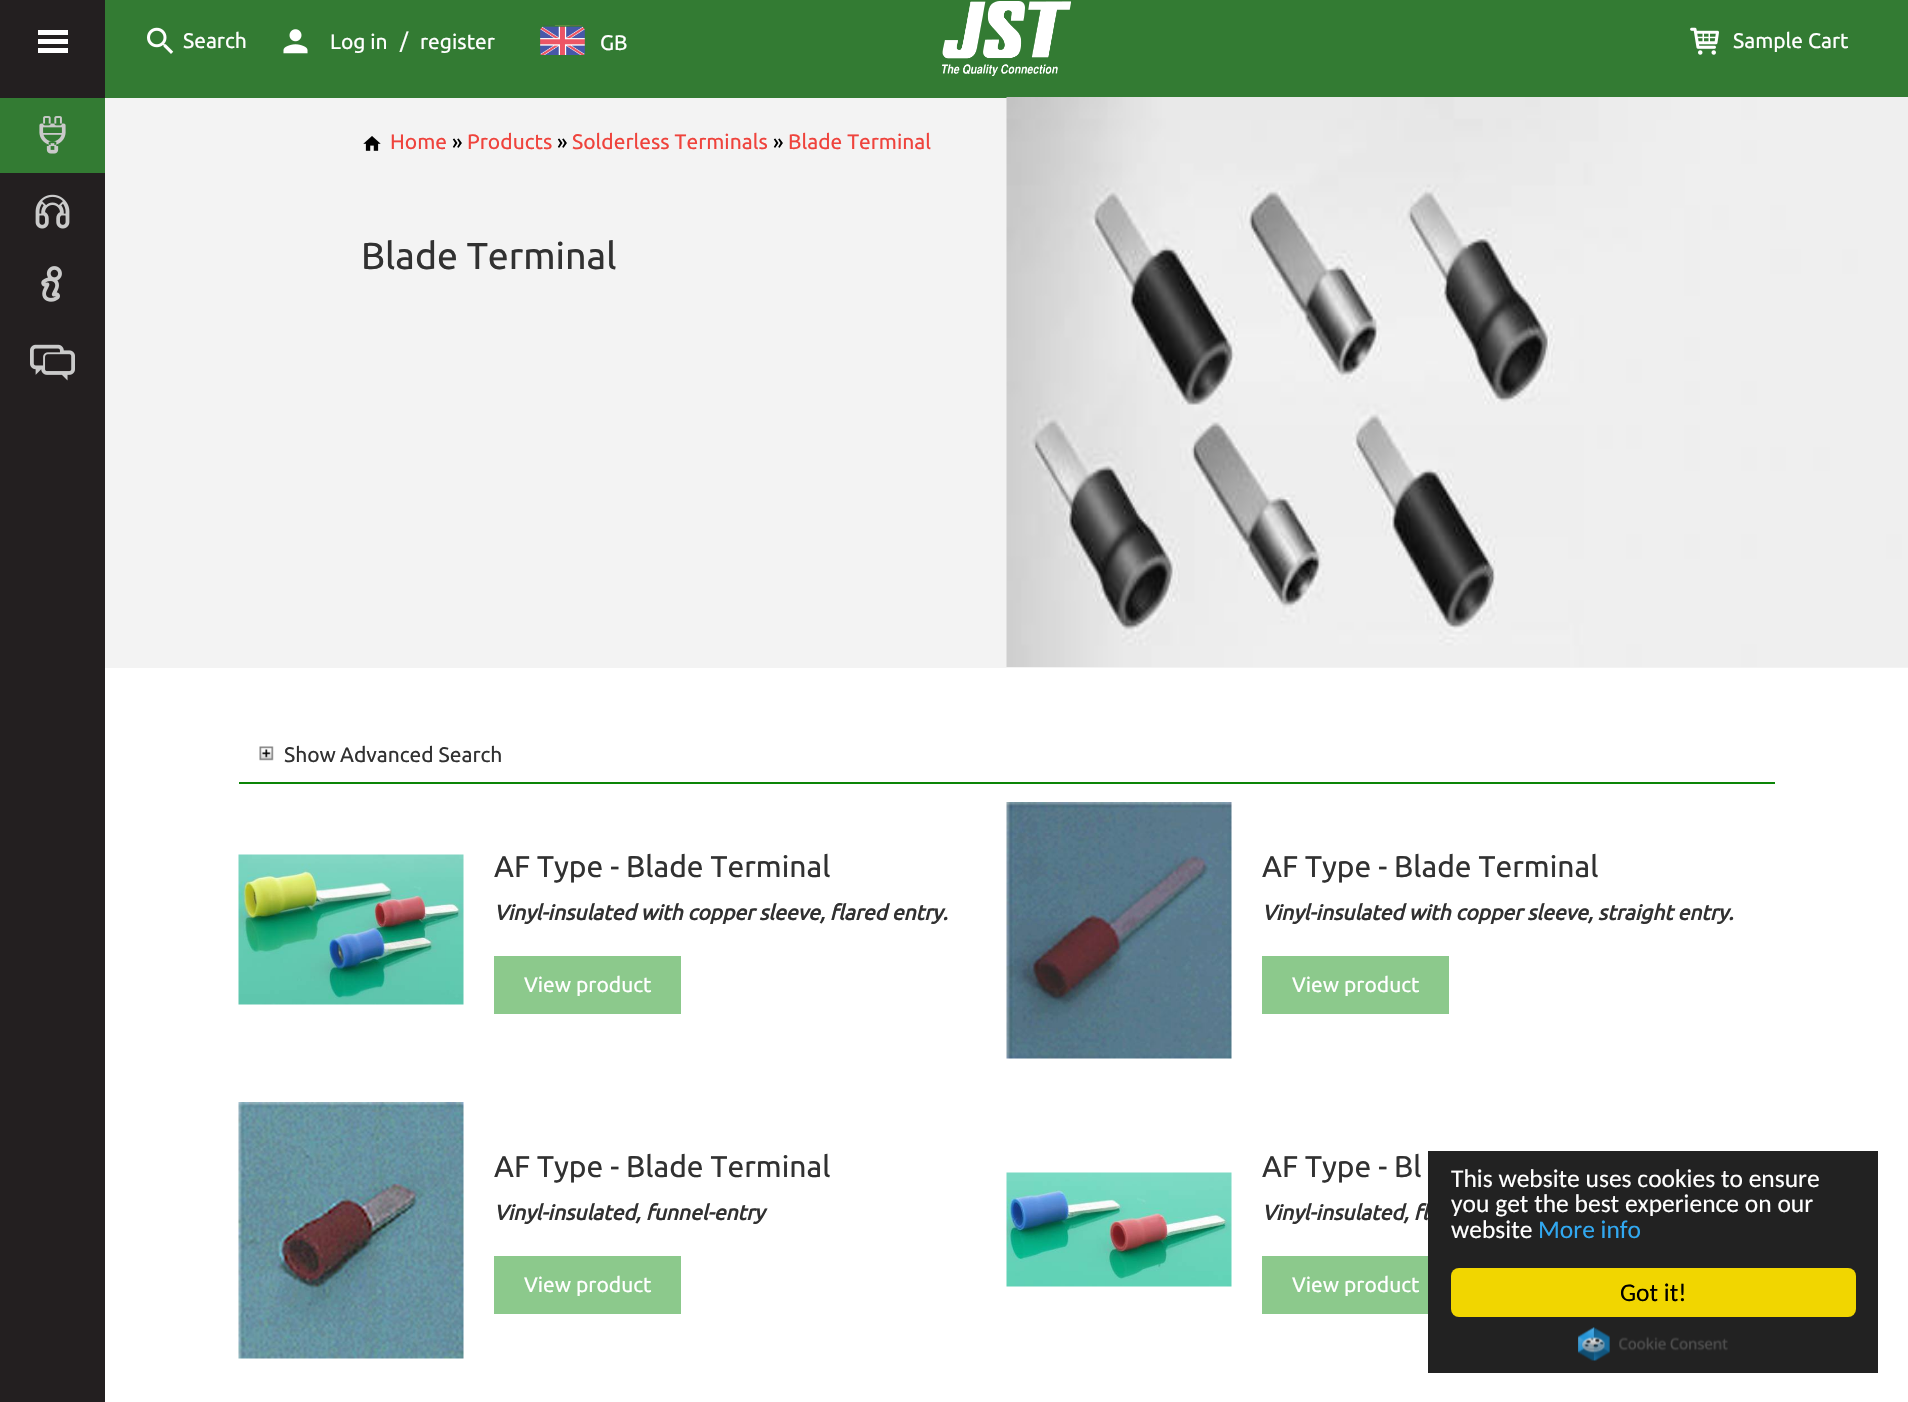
void draw(SkCanvas* c) {
SkPaint p;
p.setAntiAlias(true);
auto F=[&](const char* family, int weight, float size, bool italic = false){SkFontStyle style(weight, SkFontStyle::kNormal_Width,italic ? SkFontStyle::kItalic_Slant : SkFontStyle::kUpright_Slant);SkFont result(fontMgr->matchFamilyStyle(family, style), size);result.setSubpixel(true);return result;};
auto T=[&](const char* s, float x, float y, const SkFont& font){c->drawString(s, x, y, font, p);};
auto R=[&](float x, float y, float w, float h){c->drawRect(SkRect::MakeXYWH(x, y, w, h), p);};
auto Q=[&](float x, float y, float w, float h, float radius){c->drawRoundRect(SkRect::MakeXYWH(x, y, w, h), radius, radius, p);};
auto I=[&](const char* path, float x, float y, float w, float h){auto image = SkImages::DeferredFromEncodedData(SkData::MakeFromFileName(path));c->drawImageRect(image, SkRect::MakeXYWH(x, y, w, h), SkSamplingOptions());};
c->clear(0xff337b33);
p.setColor(0xff231f20);
R(0,0,105,1402);
p.setColor(0xffffffff);
R(38,39,30,5);
R(38,30,30,5);
R(38,48,30,5);
p.setColor(0xff337b33);
R(0,98,105,75);
I("1.png",39,116,27,38);
I("2.png",35,194,35,35);
I("3.png",41,266,21,36);
I("4.png",30,344,45,37);
I("5.png",147,27,27,27);
auto f1 = F("Ubuntu",400,21);
p.setColor(0xffffffff);
T("Search",183,48,f1);
I("6.png",283,29,25,25);
T("Log in",330,49,f1);
T("/",400,48,f1);
T("register",420,49,f1);
I("7.png",540,25,45,30);
T("GB",600,50,f1);
I("8.png",942,1,129,75);
I("9.png",1690,27,29,28);
T("Sample Cart",1733,48,f1);
R(105,668,1803,734);
p.setColor(0xfff3f3f3);
R(105,98,1803,570);
I("10.png",363,136,18,15);
p.setColor(0xffef433c);
T("Home",390,149,f1);
p.setColor(0xff000000);
T("»",452,149,f1);
p.setColor(0xffef433c);
T("Products",467,149,f1);
p.setColor(0xff000000);
T("»",557,149,f1);
p.setColor(0xffef433c);
T("Solderless Terminals",572,149,f1);
p.setColor(0xff000000);
T("»",773,149,f1);
p.setColor(0xffef433c);
T("Blade Terminal",788,149,f1);
auto f2 = F("Ubuntu",400,37.5);
p.setColor(0xff313131);
T("Blade Terminal",361,269,f2);
I("11.png",1006,97,902,570);
p.setColor(0xff0c8507);
R(239,782,1536,2);
I("12.png",259,746,15,15);
p.setColor(0xff313131);
T("Show",284,762,f1);
T("Advanced Search",340,762,f1);
I("13.png",238,854,226,151);
auto f3 = F("Ubuntu",400,30);
T("AF Type - Blade Terminal",494,877,f3);
auto f4 = F("Ubuntu",700,21,true);
T("Vinyl-insulated with copper sleeve, flared entry.",494,920,f4);
p.setColor(0xff8cc98c);
R(494,956,187,58);
p.setColor(0xffffffff);
T("View product",524,992,f1);
I("14.png",1006,802,226,257);
p.setColor(0xff313131);
T("AF Type - Blade Terminal",1262,877,f3);
T("Vinyl-insulated with copper sleeve, straight entry.",1262,920,f4);
p.setColor(0xff8cc98c);
R(1262,956,187,58);
p.setColor(0xffffffff);
T("View product",1292,992,f1);
I("15.png",238,1102,226,257);
p.setColor(0xff313131);
T("AF Type - Blade Terminal",494,1177,f3);
T("Vinyl-insulated, funnel-entry",494,1220,f4);
p.setColor(0xff8cc98c);
R(494,1256,187,58);
p.setColor(0xffffffff);
T("View product",524,1292,f1);
I("16.png",1006,1172,226,115);
p.setColor(0xff313131);
T("AF Type - Bl",1262,1177,f3);
T("Vinyl-insulated, fl",1262,1220,f4);
p.setColor(0xff8cc98c);
R(1262,1256,166,58);
p.setColor(0xffffffff);
T("View product",1292,1292,f1);
p.setColor(0xff222222);
R(1428,1151,450,222);
auto f5 = F("Carlito",400,25.5);
p.setColor(0xffffffff);
T("This website uses cookies to ensure",1451,1187,f5);
T("you get the best experience on our",1451,1212,f5);
T("website",1451,1238,f5);
p.setColor(0xff31a8f0);
T("More info",1538,1238,f5);
p.setColor(0xfff1d600);
Q(1451,1268,405,49,8);
p.setColor(0xff000000);
T("Got it!",1620,1301,f5);
I("17.png",1578,1327,150,34);
}
